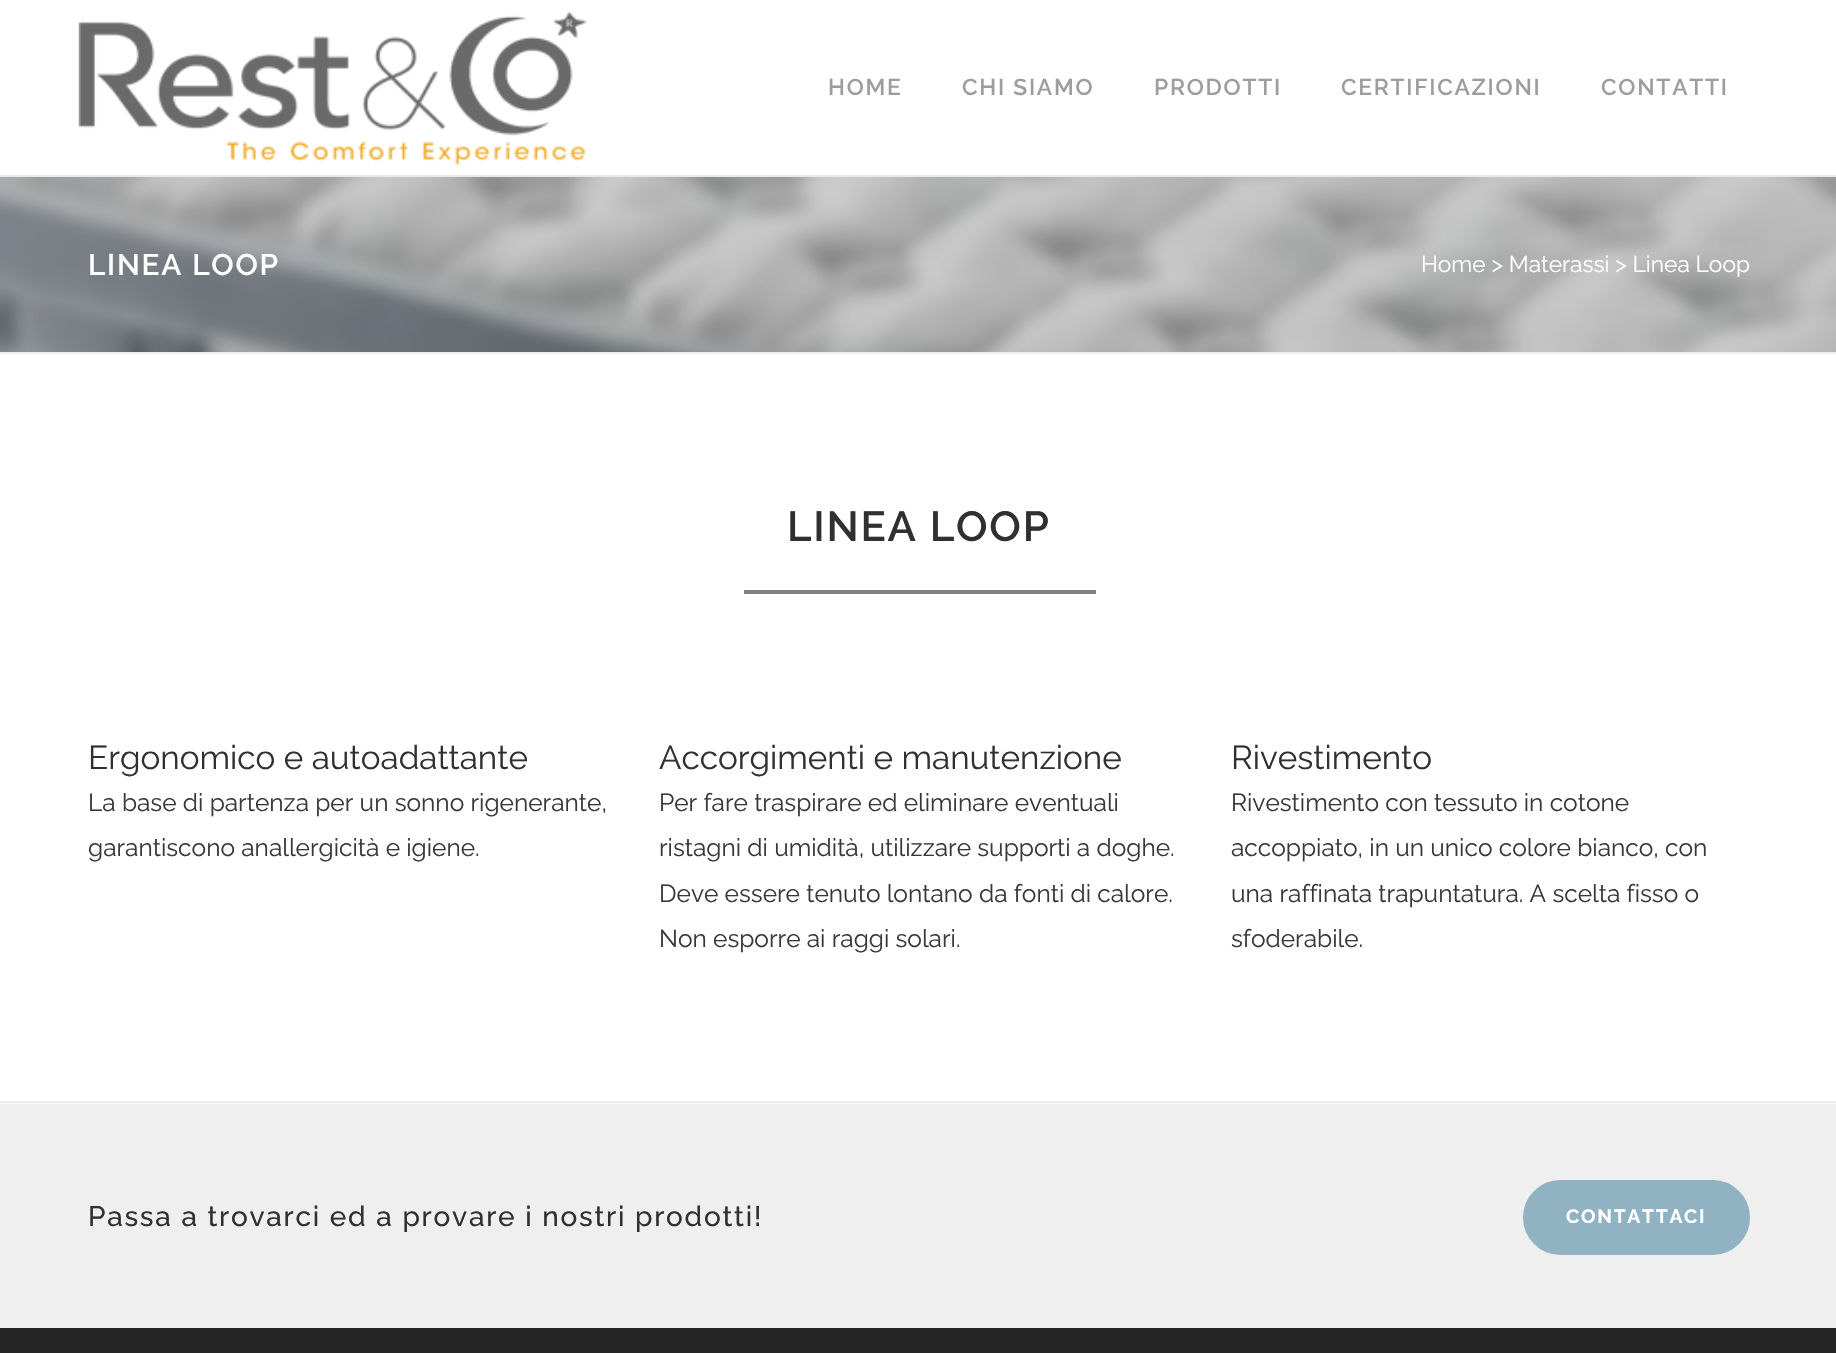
void draw(SkCanvas* c) {
SkPaint p;
p.setAntiAlias(true);
auto F=[&](const char* family, int weight, float size, bool italic = false){SkFontStyle style(weight, SkFontStyle::kNormal_Width,italic ? SkFontStyle::kItalic_Slant : SkFontStyle::kUpright_Slant);SkFont result(fontMgr->matchFamilyStyle(family, style), size);result.setSubpixel(true);return result;};
auto T=[&](const char* s, float x, float y, const SkFont& font){c->drawString(s, x, y, font, p);};
auto L=[&](const char* s, float x, float y, const SkFont& font, const SkPaint& ink, float letter, float word){std::vector<SkGlyphID> glyphs(font.countText(s, strlen(s), SkTextEncoding::kUTF8));std::vector<float> xs(glyphs.size());font.textToGlyphs(s, strlen(s), SkTextEncoding::kUTF8, glyphs);font.getXPos(glyphs, xs, x);float extra = 0;for (size_t i = 0; i < glyphs.size(); i++) {xs[i] += extra;extra += letter + word * (glyphs[i] == font.unicharToGlyph(' '));}c->drawTextBlob(SkTextBlob::MakeFromPosHGlyphs(glyphs, xs, y, font), 0, 0, ink);};
auto R=[&](float x, float y, float w, float h){c->drawRect(SkRect::MakeXYWH(x, y, w, h), p);};
auto I=[&](const char* path, float x, float y, float w, float h){auto image = SkImages::DeferredFromEncodedData(SkData::MakeFromFileName(path));c->drawImageRect(image, SkRect::MakeXYWH(x, y, w, h), SkSamplingOptions());};
c->clear(0xff262626);
p.setColor(0xffffffff);
R(0,0,1836,175);
p.setColor(0xffeaeaea);
R(0,175,1836,2);
I("1.png",78,11,509,154);
auto f1 = F("Raleway",600,22.75);
p.setColor(0xff9d9d9d);
L("HOME",828,95,f1,p,1.75,0);
L("CHI SIAMO",962,95,f1,p,1.75,0);
L("PRODOTTI",1154,95,f1,p,1.75,0);
L("CERTIFICAZIONI",1341,95,f1,p,1.75,0);
L("CONTATTI",1601,95,f1,p,1.75,0);
p.setColor(0xffffffff);
R(0,354,1836,747);
I("2.png",0,177,1836,175);
p.setColor(0xffeeeeee);
R(0,352,1836,2);
auto f2 = F("Raleway",600,29.75);
p.setColor(0xffffffff);
L("LINEA LOOP",88,275,f2,p,1.75,0);
auto f3 = F("Raleway",400,22.75);
T("Home > Materassi > Linea Loop",1421,272,f3);
p.setColor(0xffeeeeee);
R(0,1101,1836,2);
auto f4 = F("Raleway",600,42);
p.setColor(0xff303030);
L("LINEA LOOP",787,541,f4,p,1.75,0);
p.setColor(0xff818181);
R(744,590,352,4);
auto f5 = F("Raleway",400,33.25);
p.setColor(0xff303030);
T("Ergonomico e autoadattante",88,769,f5);
auto f6 = F("Raleway",400,24.5);
p.setColor(0xff383838);
T("La base di partenza per un sonno rigenerante,",88,811,f6);
T("garantiscono anallergicità e igiene.",88,856,f6);
p.setColor(0xff303030);
T("Accorgimenti e manutenzione",659,769,f5);
p.setColor(0xff383838);
T("Per fare traspirare ed eliminare eventuali",659,811,f6);
T("ristagni di umidità, utilizzare supporti a doghe.",659,856,f6);
T("Deve essere tenuto lontano da fonti di calore.",659,902,f6);
T("Non esporre ai raggi solari.",659,947,f6);
p.setColor(0xff303030);
T("Rivestimento",1231,769,f5);
p.setColor(0xff383838);
T("Rivestimento con tessuto in cotone",1231,811,f6);
T("accoppiato, in un unico colore bianco, con",1231,856,f6);
T("una raffinata trapuntatura. A scelta fisso o",1231,902,f6);
T("sfoderabile.",1231,947,f6);
p.setColor(0xfff8f8f8);
R(0,1103,1836,1);
p.setColor(0xffefefef);
R(0,1104,1836,224);
auto f7 = F("Raleway",500,28);
p.setColor(0xff303030);
L("Passa a trovarci ed a provare i nostri prodotti!",88,1226,f7,p,1.75,0);
p.setColor(0xff91b2c3);
c->drawRoundRect(SkRect::MakeXYWH(1525,1182,223,71),35.5,35.5,p);
p.setStroke(true);
p.setStrokeWidth(4);
c->drawRoundRect(SkRect::MakeXYWH(1525,1182,223,71),35.5,35.5,p);
auto f8 = F("Raleway",700,19.25);
p.setStroke(false);
p.setColor(0xffffffff);
L("CONTATTACI",1566,1223,f8,p,1.75,0);
}
